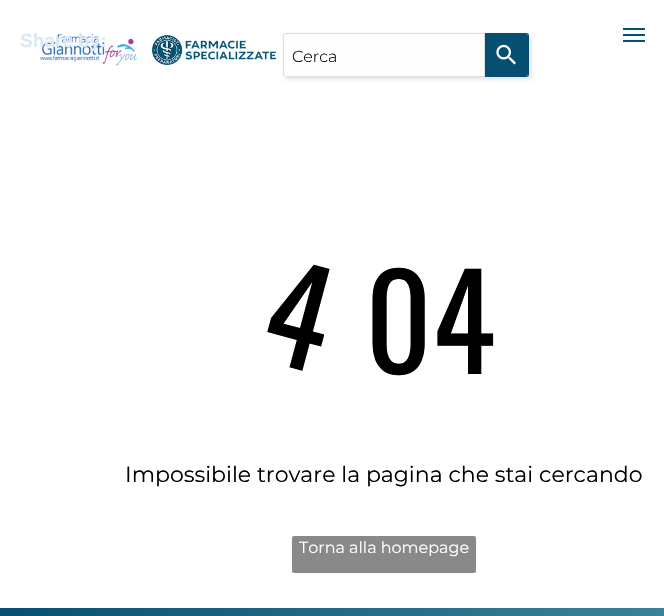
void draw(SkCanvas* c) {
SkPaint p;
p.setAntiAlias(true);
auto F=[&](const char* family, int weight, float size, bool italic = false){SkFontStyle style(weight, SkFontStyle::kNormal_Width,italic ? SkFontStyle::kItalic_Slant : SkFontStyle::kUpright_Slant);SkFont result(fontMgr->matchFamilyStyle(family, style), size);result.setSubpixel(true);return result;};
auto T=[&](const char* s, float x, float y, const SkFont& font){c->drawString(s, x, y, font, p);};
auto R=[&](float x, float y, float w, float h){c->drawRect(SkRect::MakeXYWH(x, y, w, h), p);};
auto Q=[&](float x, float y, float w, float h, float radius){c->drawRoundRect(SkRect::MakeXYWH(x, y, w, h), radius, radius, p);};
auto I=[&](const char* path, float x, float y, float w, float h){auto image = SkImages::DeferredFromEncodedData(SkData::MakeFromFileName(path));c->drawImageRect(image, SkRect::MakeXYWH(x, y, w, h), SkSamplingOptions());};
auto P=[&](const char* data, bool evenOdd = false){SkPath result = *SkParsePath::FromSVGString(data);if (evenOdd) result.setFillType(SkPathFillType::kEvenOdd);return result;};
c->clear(0xffffffff);
I("1.png",40,34,97,32);
auto f1 = F("Liberation Sans",700,19);
p.setColor(0xffdde8f3);
T("Share by:",20,47,f1);
p.setColor(0xff074f71);
R(623,28,22,2);
R(623,34,22,2);
R(623,40,22,2);
I("2.png",152,35,124,30);
p.setColor(0x1f000000);
p.setMaskFilter(SkMaskFilter::MakeBlur(kNormal_SkBlurStyle, 2));
c->drawRoundRect(SkRect::MakeXYWH(285,35,202,44),3,3,p);
p.setMaskFilter(nullptr);
p.setColor(0xfffefefe);
c->drawPath(P("M286 33.5h198.5v43h-198.5c-1.5 0-2.5-1-2.5-2.5v-38c0-1.5 1-2.5 2.5-2.5z"),p);
p.setStroke(true);
p.setStrokeWidth(1);
p.setColor(0xffdedede);
c->drawPath(P("M286 33.5h198.5v43h-198.5c-1.5 0-2.5-1-2.5-2.5v-38c0-1.5 1-2.5 2.5-2.5z"),p);
auto f2 = F("Montserrat",300,16);
p.setStroke(false);
p.setColor(0xff000000);
T("Cerca",292,62,f2);
p.setColor(0x1f000000);
p.setMaskFilter(SkMaskFilter::MakeBlur(kNormal_SkBlurStyle, 2));
c->drawRoundRect(SkRect::MakeXYWH(487,35,44,44),3,3,p);
p.setMaskFilter(nullptr);
p.setColor(0xff074f71);
c->drawPath(P("M485 34h41c1 0 2 1 2 2v38c0 1-1 2-2 2h-41z"),p);
c->drawPath(P("M485 33h41c2 0 3 1 3 3v38c0 2-1 3-3 3h-41zm0 1h41c1 0 2 1 2 2v38c0 1-1 2-2 2h-41z",true),p);
I("3.png",496,44,20,21);
auto f3 = F("Oswald",400,130);
p.setColor(0xff000000);
c->save();
c->rotate(15,255,358);
T("4",255,358,f3);
c->restore();
T("04",365,374,f3);
auto f4 = F("Montserrat",400,22);
T("Impossibile trovare la pagina che stai cercando",125,482,f4);
p.setColor(0xff898989);
Q(292,536,184,37,2);
auto f5 = F("Montserrat",400,16);
p.setColor(0xffffffff);
T("Torna alla homepage",299,553,f5);
{
const SkColor colors[] = {0xff074f71,0xff438a9e};
const float stops[] = {0,1};
const SkPoint ends[] = {{-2.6,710}, {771,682}};
p.setShader(SkGradientShader::MakeLinear(ends, colors, stops, 2, SkTileMode::kClamp));
p.setAlpha(255);
}
R(0,608,664,8);
}
